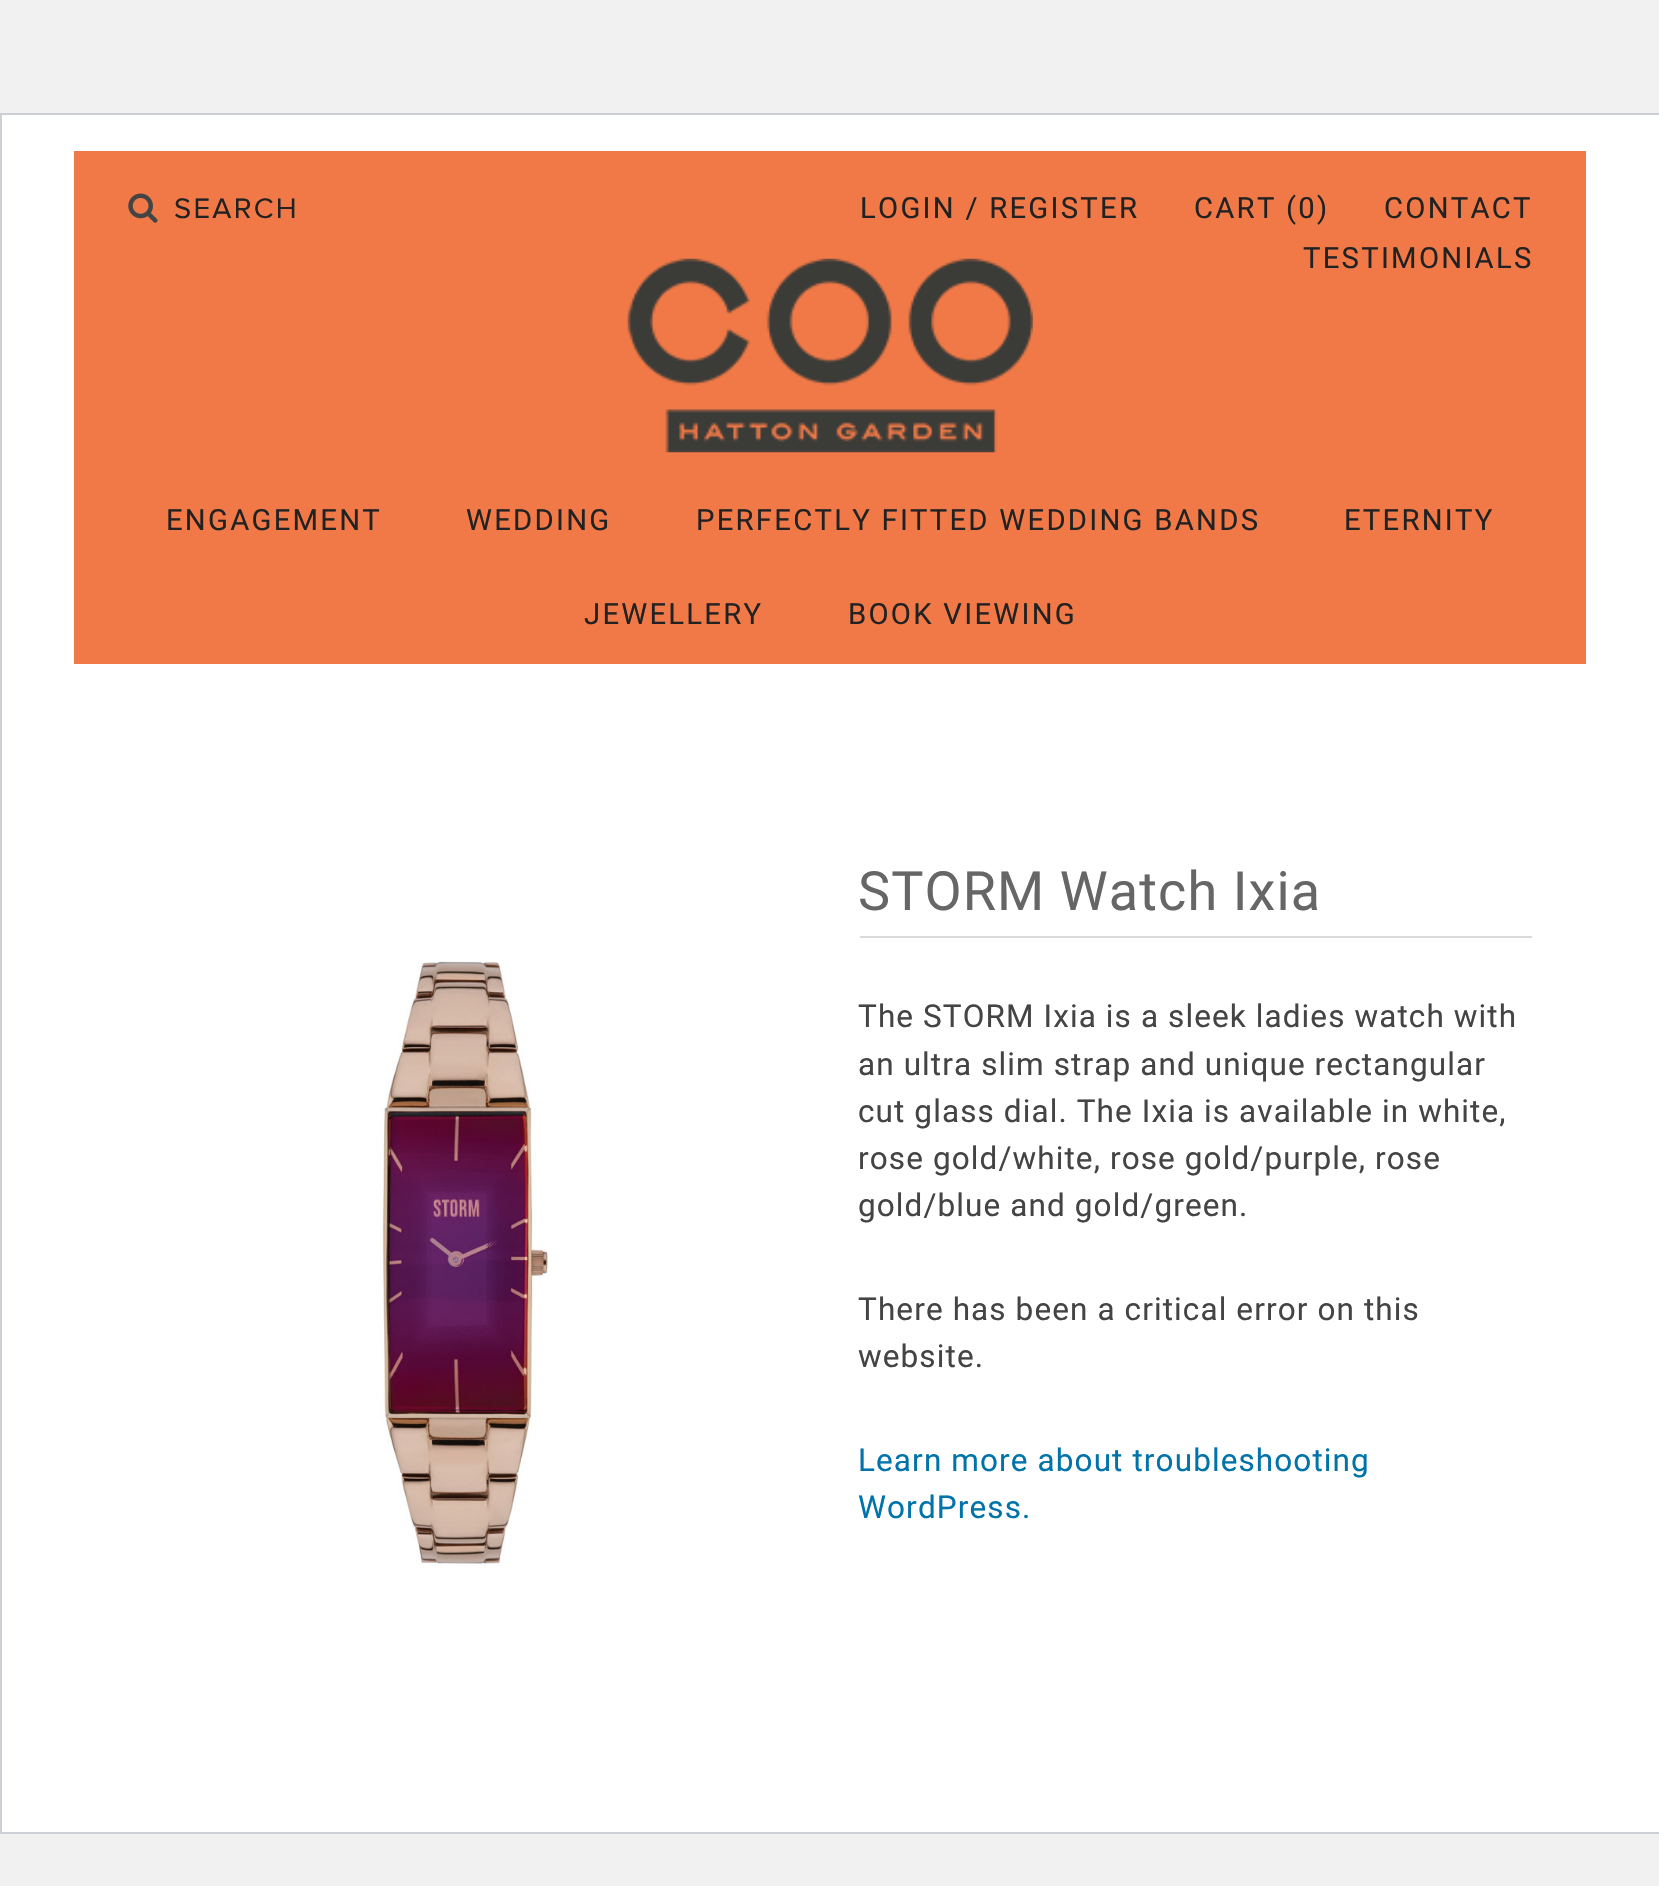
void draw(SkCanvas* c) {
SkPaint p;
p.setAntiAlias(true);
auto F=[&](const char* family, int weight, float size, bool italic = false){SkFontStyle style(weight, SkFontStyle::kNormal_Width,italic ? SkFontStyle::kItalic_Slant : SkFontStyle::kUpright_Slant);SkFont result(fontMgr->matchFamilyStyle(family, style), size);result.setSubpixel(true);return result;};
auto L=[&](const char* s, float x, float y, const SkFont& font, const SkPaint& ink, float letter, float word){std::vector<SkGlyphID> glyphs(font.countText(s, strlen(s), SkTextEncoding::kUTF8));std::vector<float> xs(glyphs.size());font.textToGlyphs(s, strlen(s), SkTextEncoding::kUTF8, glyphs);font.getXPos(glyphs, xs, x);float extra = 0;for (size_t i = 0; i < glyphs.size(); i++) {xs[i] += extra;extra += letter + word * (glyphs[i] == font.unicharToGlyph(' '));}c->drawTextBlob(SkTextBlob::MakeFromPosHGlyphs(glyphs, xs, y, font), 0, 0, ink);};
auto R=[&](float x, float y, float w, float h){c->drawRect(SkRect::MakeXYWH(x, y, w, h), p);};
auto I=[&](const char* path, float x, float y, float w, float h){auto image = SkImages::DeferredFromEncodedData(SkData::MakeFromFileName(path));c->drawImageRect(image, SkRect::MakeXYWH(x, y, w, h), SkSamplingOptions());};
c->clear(0xfff1f1f1);
p.setColor(0xffffffff);
c->drawRect(SkRect::MakeXYWH(1,114,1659,1719),p);
p.setStroke(true);
p.setStrokeWidth(2);
p.setColor(0xffccd0d4);
c->drawRect(SkRect::MakeXYWH(1,114,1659,1719),p);
p.setStroke(false);
p.setColor(0xfff07947);
R(74,151,1512,513);
I("1.png",128,193,30,30);
auto f1 = F("Proxima Nova",400,29.25);
p.setColor(0xff222222);
L("SEARCH",174,218,f1,p,2.25,0);
auto f2 = F("Roboto",400,29.25);
L("LOGIN / REGISTER",860,218,f2,p,2.25,0);
L("CART (0)",1194,218,f2,p,2.25,0);
L("CONTACT",1384,218,f2,p,2.25,0);
L("TESTIMONIALS",1303,268,f2,p,2.25,0);
I("2.png",627,258,406,195);
L("ENGAGEMENT",166,530,f2,p,2.25,0);
L("WEDDING",466,530,f2,p,2.25,0);
L("PERFECTLY FITTED WEDDING BANDS",696,530,f2,p,2.25,0);
L("ETERNITY",1344,530,f2,p,2.25,0);
L("JEWELLERY",584,624,f2,p,2.25,0);
L("BOOK VIEWING",848,624,f2,p,2.25,0);
I("3.png",380,961,169,605);
p.setColor(0xffdadada);
R(860,936,672,2);
auto f3 = F("Roboto",400,54);
p.setColor(0xff666666);
L("STORM Watch Ixia",858,910,f3,p,1.1,0);
auto f4 = F("Roboto",400,31.5);
p.setColor(0xff444444);
L("The STORM Ixia is a sleek ladies watch with",858,1027,f4,p,1.1,0);
L("an ultra slim strap and unique rectangular",858,1075,f4,p,1.1,0);
L("cut glass dial. The Ixia is available in white,",858,1122,f4,p,1.1,0);
L("rose gold/white, rose gold/purple, rose",858,1169,f4,p,1.1,0);
L("gold/blue and gold/green.",858,1216,f4,p,1.1,0);
L("There has been a critical error on this",858,1320,f4,p,1.1,0);
L("website.",858,1367,f4,p,1.1,0);
p.setColor(0xff0073aa);
L("Learn more about troubleshooting",858,1471,f4,p,1.1,0);
L("WordPress.",858,1518,f4,p,1.1,0);
}
